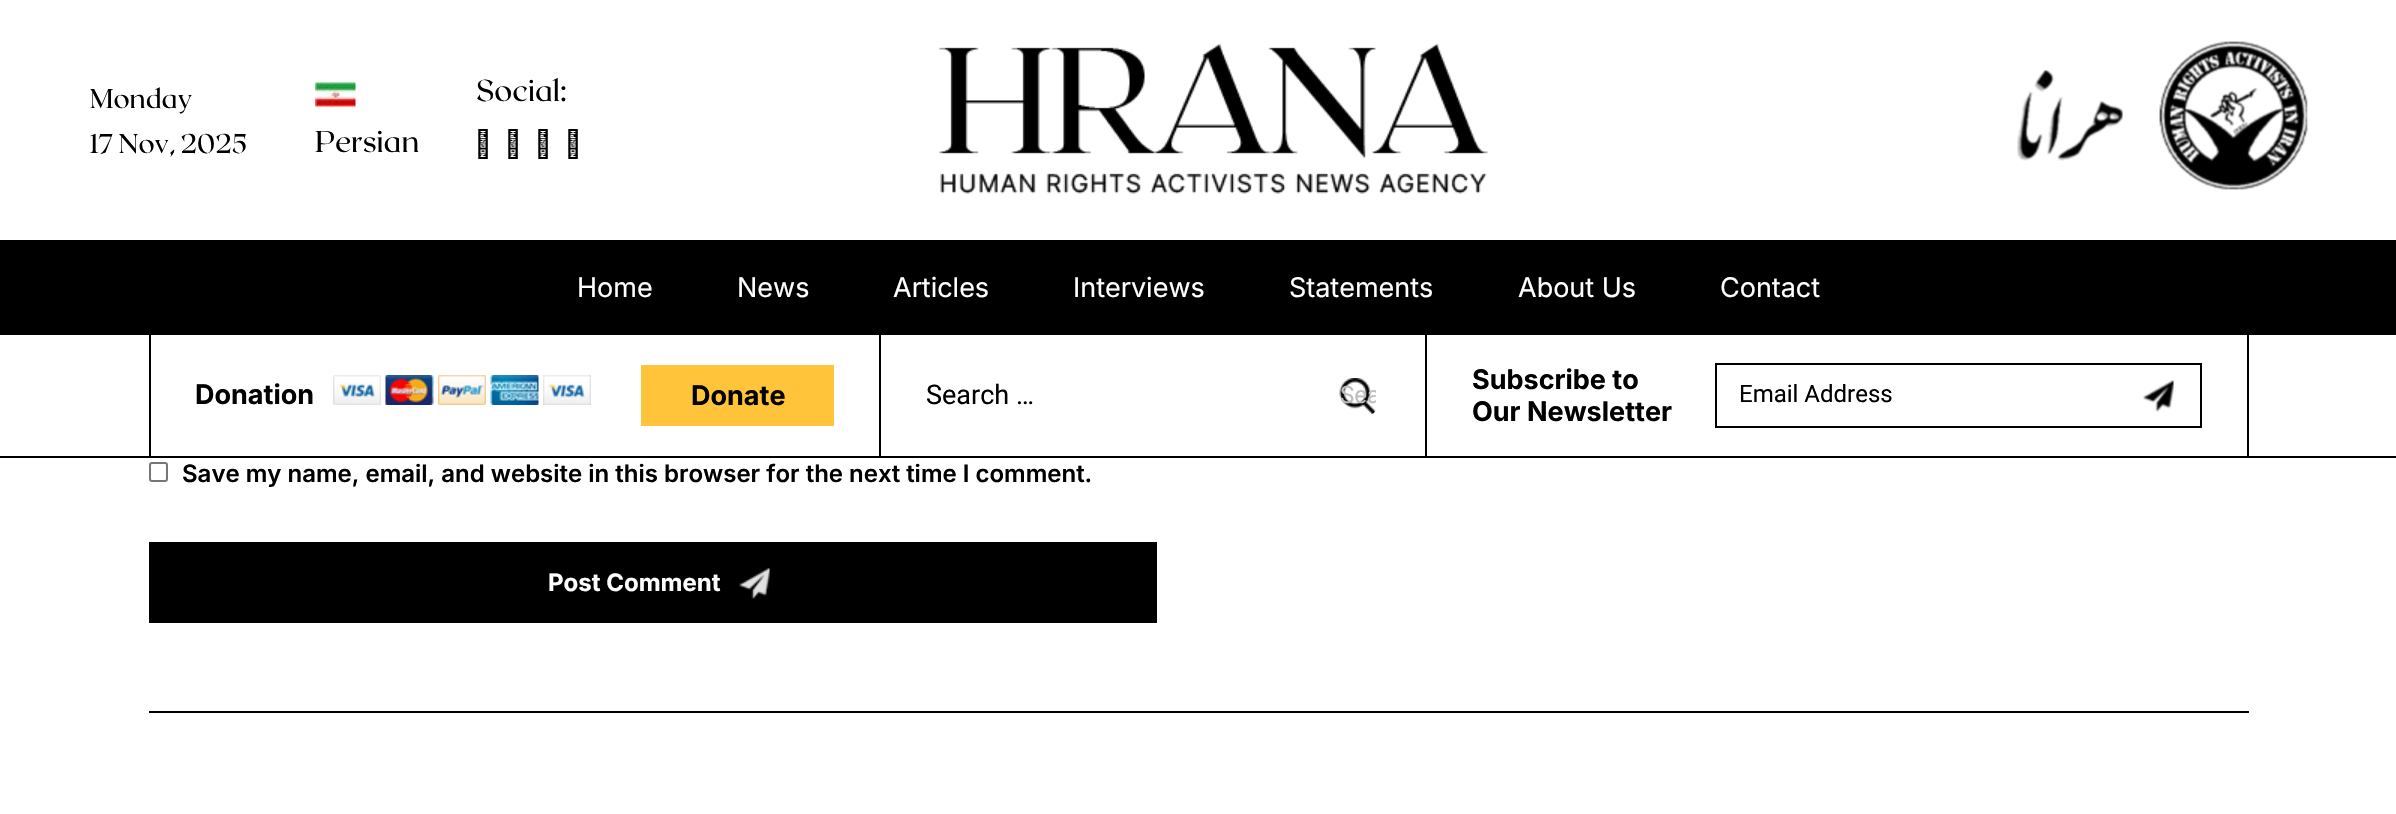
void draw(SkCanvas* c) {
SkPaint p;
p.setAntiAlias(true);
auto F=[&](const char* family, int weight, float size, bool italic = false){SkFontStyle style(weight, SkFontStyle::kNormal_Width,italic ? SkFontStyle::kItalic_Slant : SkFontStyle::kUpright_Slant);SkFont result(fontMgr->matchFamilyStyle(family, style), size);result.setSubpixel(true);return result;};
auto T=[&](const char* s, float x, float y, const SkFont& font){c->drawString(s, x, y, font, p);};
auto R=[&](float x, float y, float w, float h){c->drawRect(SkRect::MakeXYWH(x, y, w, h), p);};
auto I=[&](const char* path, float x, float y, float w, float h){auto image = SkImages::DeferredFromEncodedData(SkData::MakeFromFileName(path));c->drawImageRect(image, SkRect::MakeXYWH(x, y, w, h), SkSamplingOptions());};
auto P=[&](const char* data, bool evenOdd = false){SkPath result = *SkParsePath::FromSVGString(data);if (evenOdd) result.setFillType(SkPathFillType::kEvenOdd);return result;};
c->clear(0xffffffff);
auto f1 = F("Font",400,27);
p.setColor(0xff000000);
T("Monday",90,108,f1);
T("17 Nov, 2025",90,153,f1);
I("1.png",315,82,41,25);
auto f2 = F("Font",400,30);
T("Persian",315,152,f2);
T("Social:",476,101,f2);
I("2.png",478,129,10,30);
I("2.png",508,129,10,30);
I("2.png",538,129,10,30);
I("2.png",568,129,10,30);
I("3.png",939,43,549,151);
I("4.png",2017,70,106,91);
I("5.png",2159,41,149,149);
R(0,240,2396,95);
auto f3 = F("Inter",400,27);
p.setColor(0xffffffff);
T("Home",577,297,f3);
T("News",737,297,f3);
T("Articles",893,297,f3);
T("Interviews",1073,297,f3);
T("Statements",1289,297,f3);
T("About Us",1518,297,f3);
T("Contact",1720,297,f3);
p.setColor(0xff000000);
R(0,456,2396,2);
R(879,335,2,121);
R(149,335,2,121);
auto f4 = F("Inter",700,27);
T("Donation",195,404,f4);
I("6.png",333,375,48,30);
I("7.png",385,375,49,30);
I("8.png",438,375,48,30);
I("9.png",490,375,49,30);
I("10.png",543,375,48,30);
p.setColor(0xffffc439);
R(641,365,193,61);
p.setColor(0xff000000);
T("Donate",691,405,f4);
auto f5 = F("Roboto",400,27);
T("Search …",926,404,f5);
I("11.png",1339,378,37,36);
c->save();
c->clipPath(P("M1345 378h26c3 0 5 2 5 5v26c0 3-2 5-5 5h-26c-3 0-5-2-5-5v-26c0-3 2-5 5-5z"),true);
auto f6 = F("Roboto",400,24);
p.setColor(0xffbebebe);
T("Sea",1340,403,f6);
c->restore();
p.setColor(0xff000000);
R(2247,335,2,121);
R(1425,335,2,121);
T("Subscribe to",1472,389,f4);
T("Our Newsletter",1472,421,f4);
p.setStroke(true);
p.setStrokeWidth(2);
c->drawRect(SkRect::MakeXYWH(1716,364,485,63),p);
p.setStroke(false);
T("Email Address",1739,402,f6);
I("12.png",2143,380,31,32);
p.setStroke(true);
p.setColor(0xff767676);
c->drawRoundRect(SkRect::MakeXYWH(150,463,17,18),2,2,p);
auto f7 = F("Inter",600,24);
p.setStroke(false);
p.setColor(0xff000000);
T("Save my name, email, and website in this browser for the next time I comment.",182,482,f7);
R(149,542,1008,81);
I("13.png",739,568,31,31);
auto f8 = F("Inter",700,24);
p.setColor(0xffffffff);
T("Post Comment",548,591,f8);
p.setColor(0xff000000);
R(149,711,2100,2);
}
